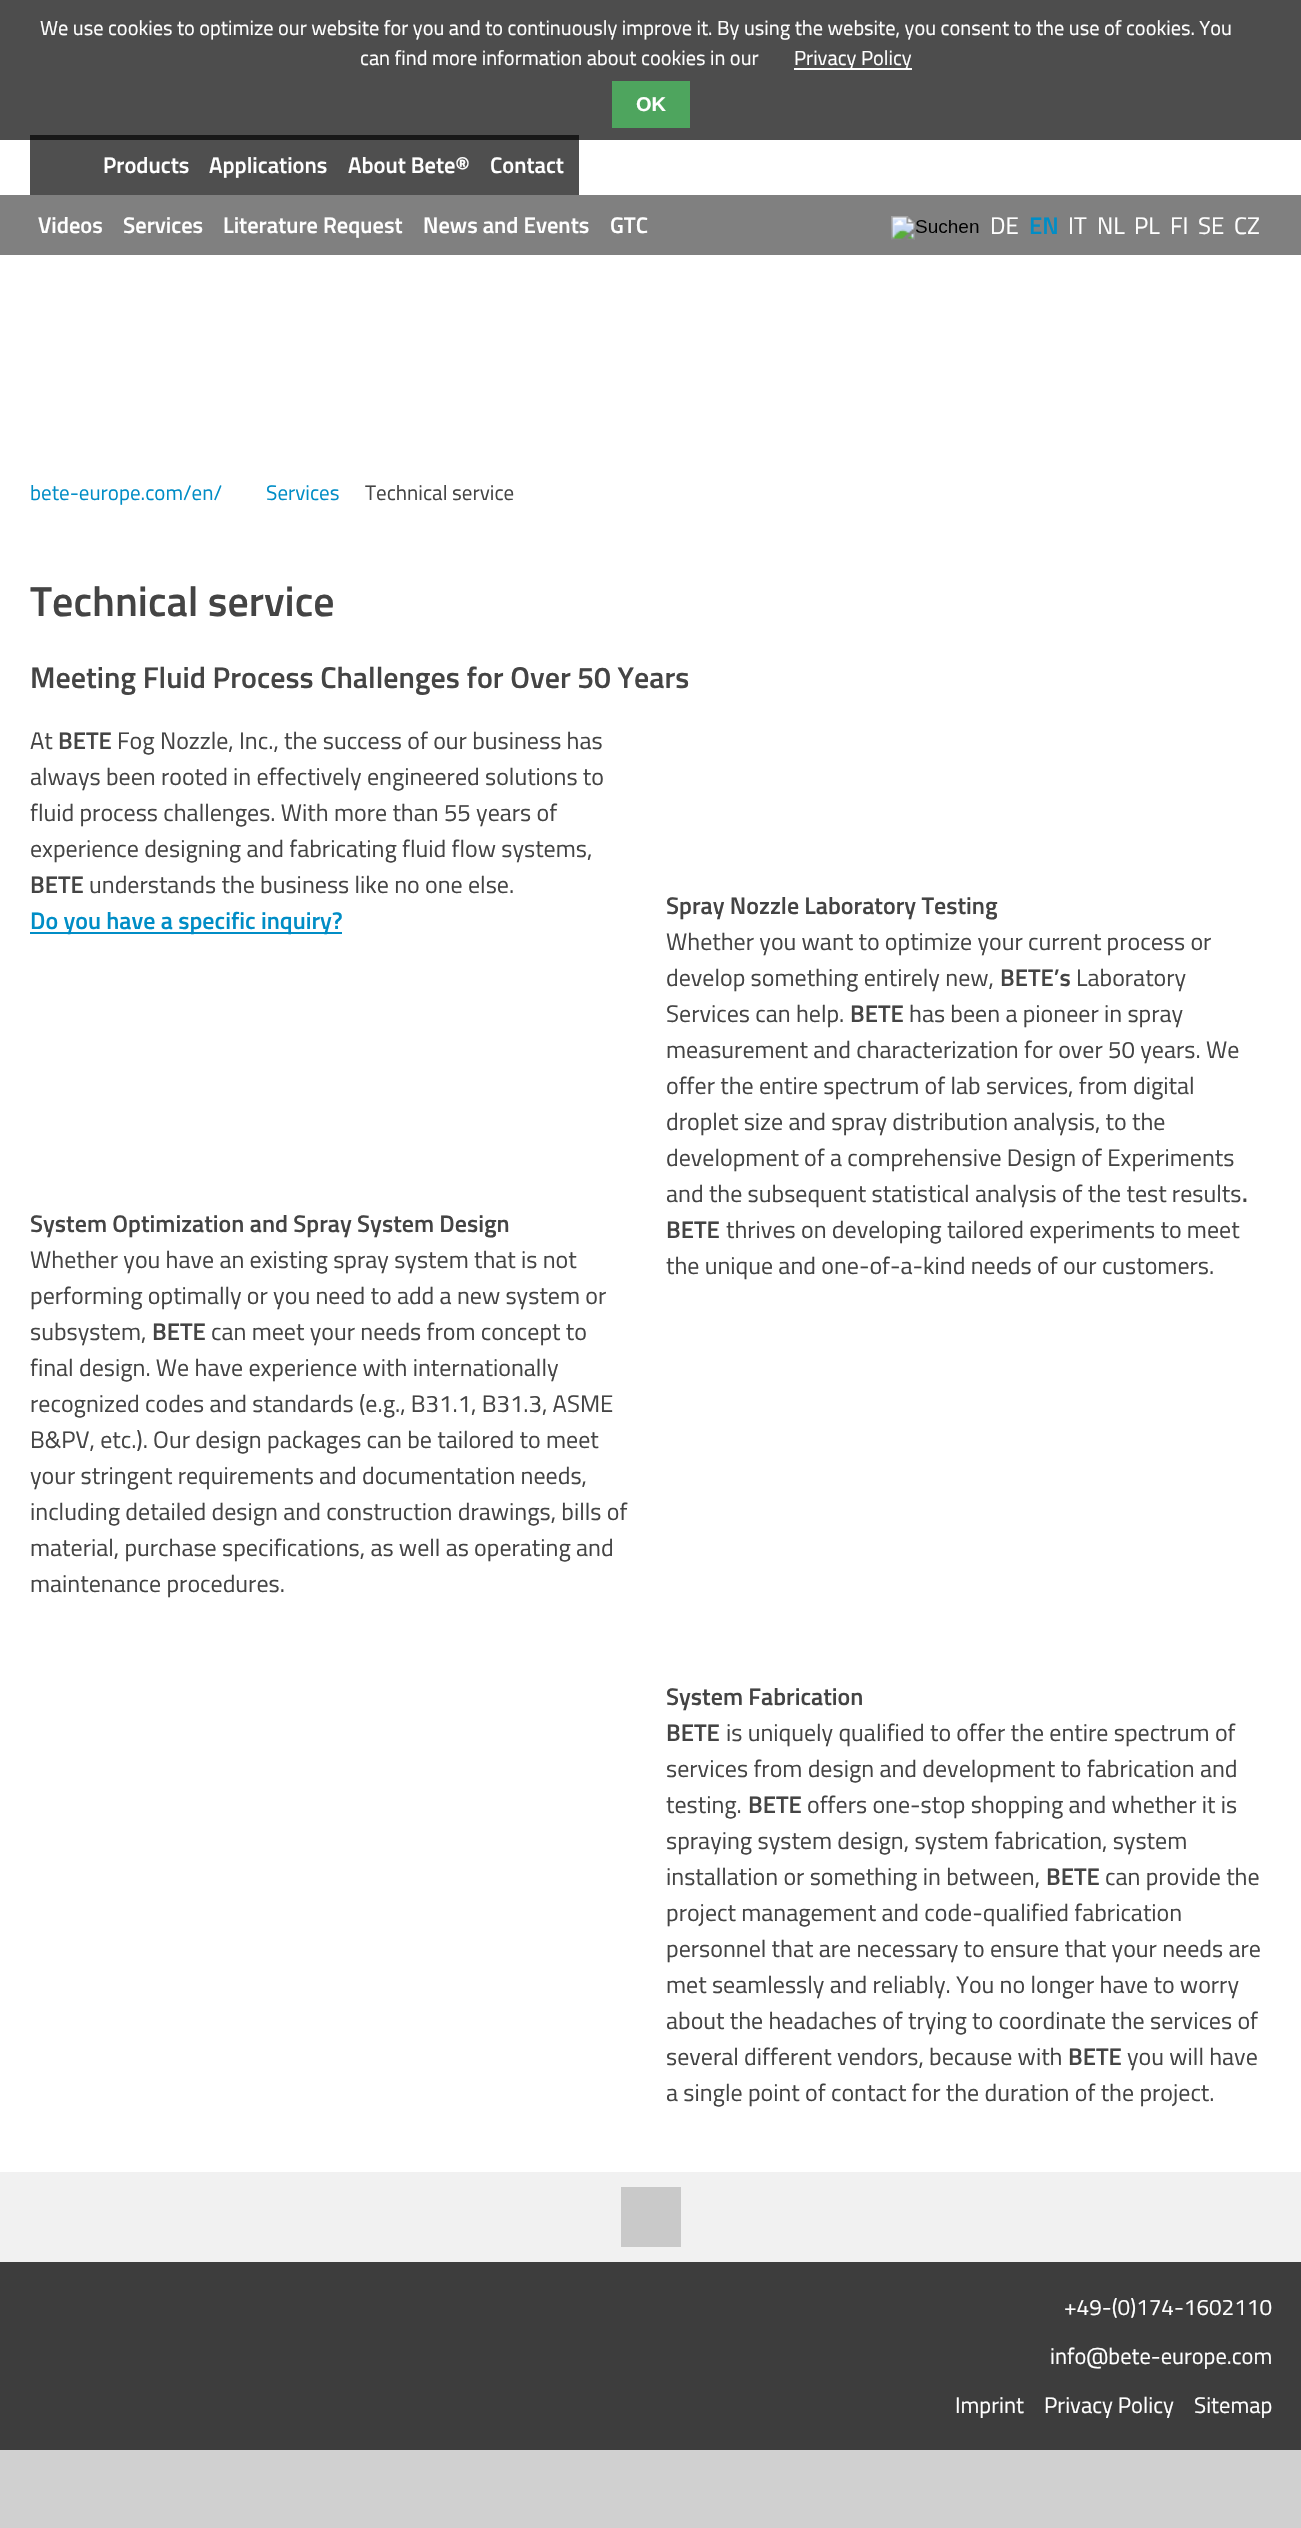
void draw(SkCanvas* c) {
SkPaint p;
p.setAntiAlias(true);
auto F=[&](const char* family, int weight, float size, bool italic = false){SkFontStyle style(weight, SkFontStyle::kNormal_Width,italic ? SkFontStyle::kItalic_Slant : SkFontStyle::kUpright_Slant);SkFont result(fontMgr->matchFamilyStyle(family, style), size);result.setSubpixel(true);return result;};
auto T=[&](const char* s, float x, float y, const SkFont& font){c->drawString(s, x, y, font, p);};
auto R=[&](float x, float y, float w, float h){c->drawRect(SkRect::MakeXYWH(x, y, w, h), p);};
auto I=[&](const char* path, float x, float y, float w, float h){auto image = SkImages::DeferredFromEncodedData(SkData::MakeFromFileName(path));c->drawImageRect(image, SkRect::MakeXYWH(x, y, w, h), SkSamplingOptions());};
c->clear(0xffd0d0d0);
p.setColor(0xff4d4d4d);
R(0,0,1301,140);
auto f1 = F("Titillium Web",400,20.4);
p.setColor(0xffffffff);
T("We use cookies to optimize our website for you and to continuously improve it. By using the website, you consent to the use of cookies. You",40,35,f1);
T("can find more information about cookies in our",360,65,f1);
R(794,68,118,2);
T("Privacy Policy",794,65,f1);
p.setColor(0xff4ea55e);
R(612,81,78,47);
auto f2 = F("Liberation Sans",700,20);
p.setColor(0xffffffff);
T("OK",636,111,f2);
R(0,140,1301,55);
p.setColor(0xff4f4f4f);
R(30,140,549,55);
p.setColor(0xff181818);
R(30,135,549,5);
auto f3 = F("Titillium Web",600,22.5);
p.setColor(0xffffffff);
T("Products",103,173,f3);
T("Applications",209,173,f3);
T("About Bete®",348,173,f3);
T("Contact",490,173,f3);
p.setColor(0xff808080);
R(0,195,1301,60);
p.setColor(0xffffffff);
T("Videos",38,233,f3);
T("Services",123,233,f3);
T("Literature Request",223,233,f3);
T("News and Events",423,233,f3);
T("GTC",610,233,f3);
I("1.png",891,216,88,24);
auto f4 = F("Titillium Web",400,24);
T("DE",990,234,f4);
auto f5 = F("Titillium Web",600,24);
p.setColor(0xff008dc6);
T("EN",1029,234,f5);
p.setColor(0xffffffff);
T("IT",1068,234,f4);
T("NL",1097,234,f4);
T("PL",1134,234,f4);
T("FI",1170,234,f4);
T("SE",1198,234,f4);
T("CZ",1234,234,f4);
R(0,255,1301,1917);
auto f6 = F("Titillium Web",400,21);
p.setColor(0xff008dc6);
T("bete-europe.com/en/",30,500,f6);
T("Services",266,500,f6);
p.setColor(0xff444444);
T("Technical service",365,500,f6);
auto f7 = F("Titillium Web",600,42);
T("Technical service",30,616,f7);
auto f8 = F("Titillium Web",600,30);
T("Meeting Fluid Process Challenges for Over 50 Years",30,688,f8);
T("At",30,749,f4);
T("BETE",58,749,f5);
T("Fog Nozzle, Inc., the success of our business has",117,749,f4);
T("always been rooted in effectively engineered solutions to",30,785,f4);
T("fluid process challenges. With more than 55 years of",30,821,f4);
T("experience designing and fabricating fluid flow systems,",30,857,f4);
T("BETE",30,893,f5);
T("understands the business like no one else.",89,893,f4);
p.setColor(0xff008dc6);
R(30,932,312,2);
T("Do you have a specific inquiry?",30,929,f5);
p.setColor(0xff444444);
T("System Optimization and Spray System Design",30,1232,f5);
T("Whether you have an existing spray system that is not",30,1268,f4);
T("performing optimally or you need to add a new system or",30,1304,f4);
T("subsystem,",30,1340,f4);
T("BETE",152,1340,f5);
T("can meet your needs from concept to",211,1340,f4);
T("final design. We have experience with internationally",30,1376,f4);
T("recognized codes and standards (e.g., B31.1, B31.3, ASME",30,1412,f4);
T("B&PV, etc.). Our design packages can be tailored to meet",30,1448,f4);
T("your stringent requirements and documentation needs,",30,1484,f4);
T("including detailed design and construction drawings, bills of",30,1520,f4);
T("material, purchase specifications, as well as operating and",30,1556,f4);
T("maintenance procedures.",30,1592,f4);
T("Spray Nozzle Laboratory Testing",666,914,f5);
T("Whether you want to optimize your current process or",666,950,f4);
T("develop something entirely new,",666,986,f4);
T("BETE’s",1000,986,f5);
T("Laboratory",1076,986,f4);
T("Services can help.",666,1022,f4);
T("BETE",850,1022,f5);
T("has been a pioneer in spray",909,1022,f4);
T("measurement and characterization for over 50 years. We",666,1058,f4);
T("offer the entire spectrum of lab services, from digital",666,1094,f4);
T("droplet size and spray distribution analysis, to the",666,1130,f4);
T("development of a comprehensive Design of Experiments",666,1166,f4);
T("and the subsequent statistical analysis of the test results",666,1202,f4);
T(".",1242,1202,f5);
T("BETE",666,1238,f5);
T("thrives on developing tailored experiments to meet",726,1238,f4);
T("the unique and one-of-a-kind needs of our customers.",666,1274,f4);
T("System Fabrication",666,1705,f5);
T("BETE",666,1741,f5);
T("is uniquely qualified to offer the entire spectrum of",726,1741,f4);
T("services from design and development to fabrication and",666,1777,f4);
T("testing.",666,1813,f4);
T("BETE",748,1813,f5);
T("offers one-stop shopping and whether it is",807,1813,f4);
T("spraying system design, system fabrication, system",666,1849,f4);
T("installation or something in between,",666,1885,f4);
T("BETE",1046,1885,f5);
T("can provide the",1105,1885,f4);
T("project management and code-qualified fabrication",666,1921,f4);
T("personnel that are necessary to ensure that your needs are",666,1957,f4);
T("met seamlessly and reliably. You no longer have to worry",666,1993,f4);
T("about the headaches of trying to coordinate the services of",666,2029,f4);
T("several different vendors, because with",666,2065,f4);
T("BETE",1068,2065,f5);
T("you will have",1127,2065,f4);
T("a single point of contact for the duration of the project.",666,2101,f4);
p.setColor(0xfff1f1f1);
R(0,2172,1301,90);
p.setColor(0xffc9c9c9);
R(621,2187,60,60);
p.setColor(0xff3d3d3d);
R(0,2262,1301,188);
auto f9 = F("Titillium Web",400,22.5);
p.setColor(0xffffffff);
T("+49-(0)174-1602110",1064,2315,f9);
T("info@bete-europe.com",1050,2364,f9);
T("Imprint",955,2413,f9);
T("Privacy Policy",1044,2413,f9);
T("Sitemap",1194,2413,f9);
}
